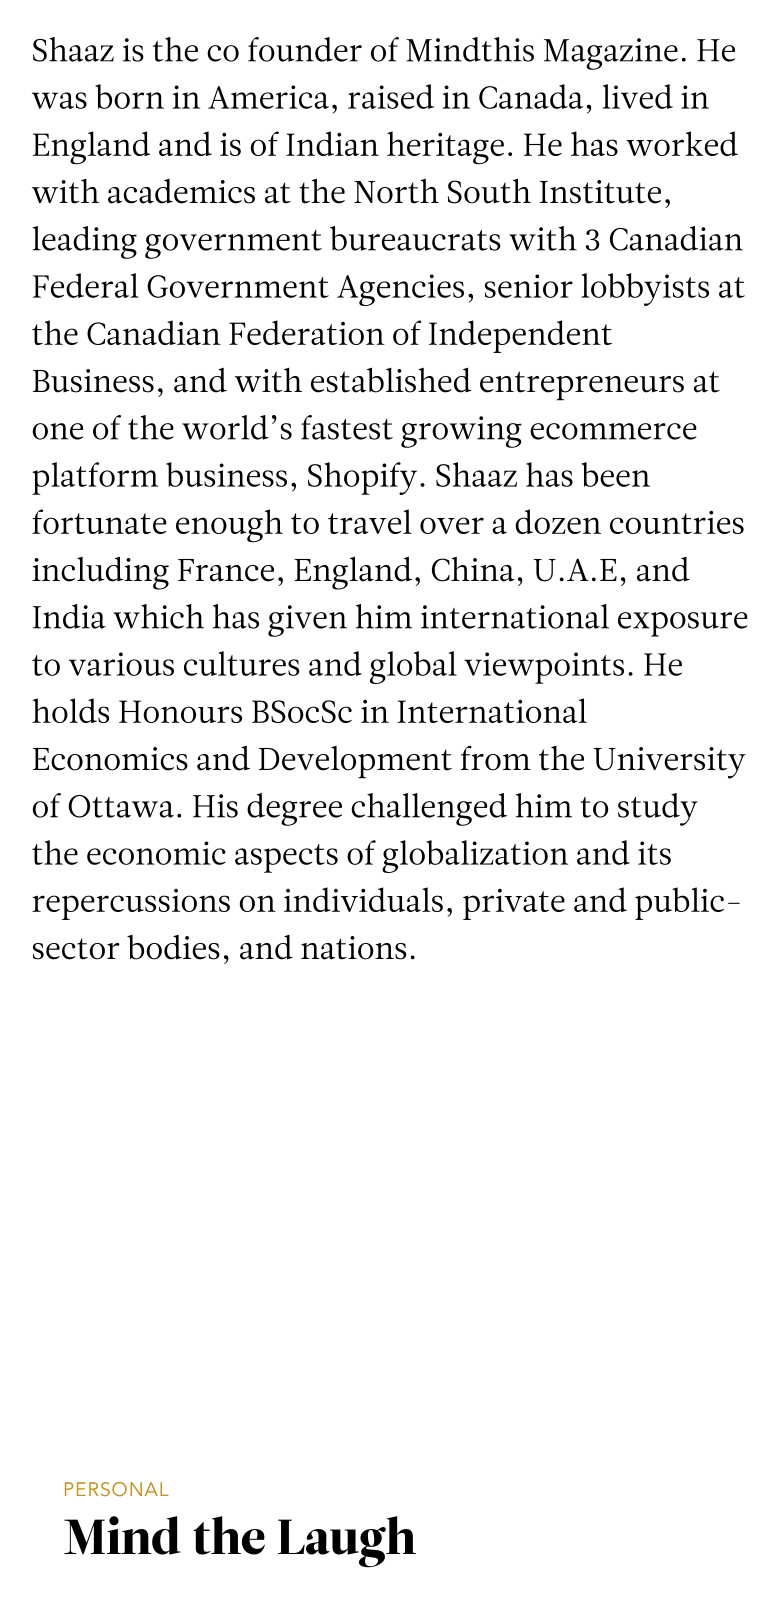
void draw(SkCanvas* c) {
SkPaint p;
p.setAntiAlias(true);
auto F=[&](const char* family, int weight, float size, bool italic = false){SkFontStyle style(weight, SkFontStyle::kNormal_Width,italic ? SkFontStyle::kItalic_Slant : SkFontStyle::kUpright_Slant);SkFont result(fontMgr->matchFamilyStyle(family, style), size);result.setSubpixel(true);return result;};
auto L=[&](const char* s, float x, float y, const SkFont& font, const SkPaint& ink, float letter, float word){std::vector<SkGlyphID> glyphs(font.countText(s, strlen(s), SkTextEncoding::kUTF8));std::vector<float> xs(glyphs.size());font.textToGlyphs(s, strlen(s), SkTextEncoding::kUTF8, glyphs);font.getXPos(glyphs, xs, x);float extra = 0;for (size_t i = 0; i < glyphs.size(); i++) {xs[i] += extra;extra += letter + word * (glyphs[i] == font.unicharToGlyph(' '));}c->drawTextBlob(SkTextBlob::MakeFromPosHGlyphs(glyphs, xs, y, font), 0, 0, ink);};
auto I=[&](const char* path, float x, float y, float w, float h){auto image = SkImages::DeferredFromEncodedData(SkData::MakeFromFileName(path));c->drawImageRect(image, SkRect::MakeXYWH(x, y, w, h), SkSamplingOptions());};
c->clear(0xffffffff);
I("1.png",33,37,703,33);
I("2.png",31,84,678,30);
I("3.png",32,131,706,34);
I("4.png",31,178,639,30);
I("5.png",32,226,711,33);
I("6.png",32,273,713,33);
I("7.png",32,320,581,33);
I("8.png",32,367,688,34);
I("9.png",32,415,665,33);
I("10.png",32,462,619,33);
I("11.png",32,509,712,34);
I("12.png",32,556,658,34);
I("13.png",32,604,716,33);
I("14.png",32,651,650,33);
I("15.png",32,698,555,26);
I("16.png",32,745,714,34);
I("17.png",32,793,666,33);
I("18.png",32,840,639,33);
I("19.png",32,887,708,33);
I("20.png",32,934,383,30);
auto f1 = F("Avenir",400,19.25);
p.setColor(0xffc6911f);
L("PERSONAL",63,1496,f1,p,1,0);
I("21.png",64,1516,352,52);
}
